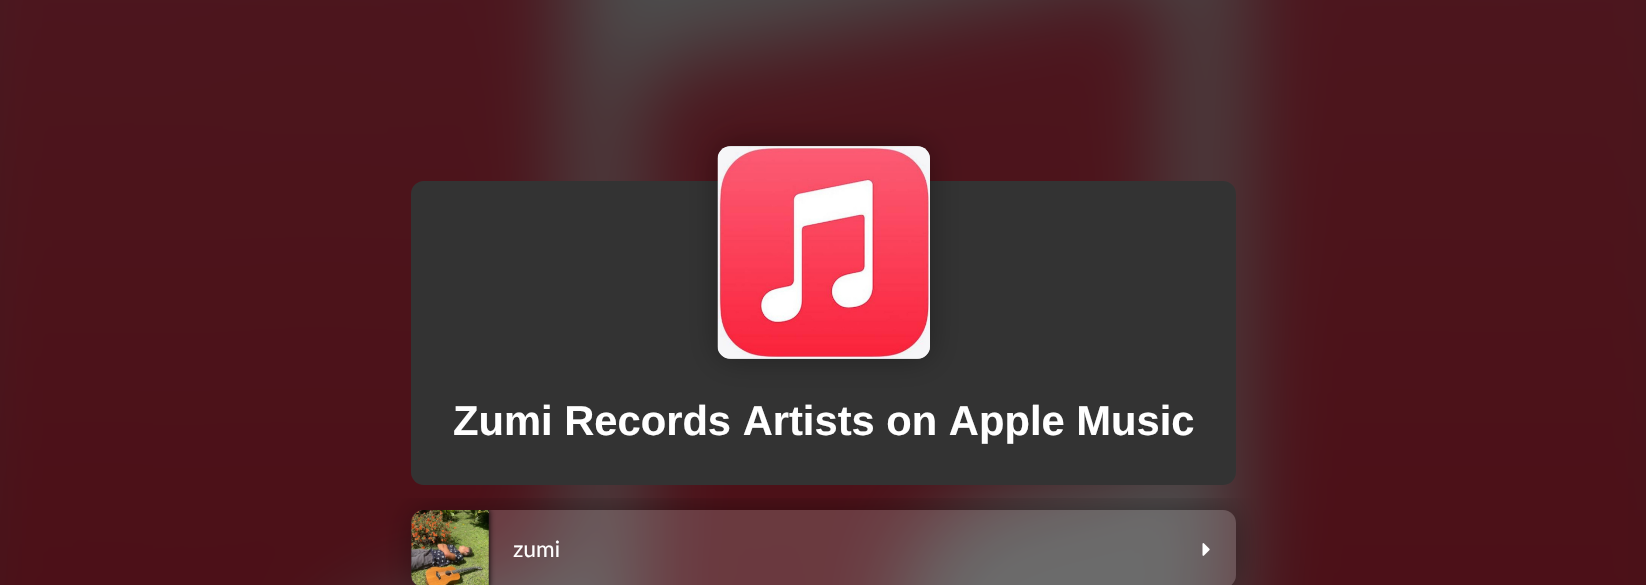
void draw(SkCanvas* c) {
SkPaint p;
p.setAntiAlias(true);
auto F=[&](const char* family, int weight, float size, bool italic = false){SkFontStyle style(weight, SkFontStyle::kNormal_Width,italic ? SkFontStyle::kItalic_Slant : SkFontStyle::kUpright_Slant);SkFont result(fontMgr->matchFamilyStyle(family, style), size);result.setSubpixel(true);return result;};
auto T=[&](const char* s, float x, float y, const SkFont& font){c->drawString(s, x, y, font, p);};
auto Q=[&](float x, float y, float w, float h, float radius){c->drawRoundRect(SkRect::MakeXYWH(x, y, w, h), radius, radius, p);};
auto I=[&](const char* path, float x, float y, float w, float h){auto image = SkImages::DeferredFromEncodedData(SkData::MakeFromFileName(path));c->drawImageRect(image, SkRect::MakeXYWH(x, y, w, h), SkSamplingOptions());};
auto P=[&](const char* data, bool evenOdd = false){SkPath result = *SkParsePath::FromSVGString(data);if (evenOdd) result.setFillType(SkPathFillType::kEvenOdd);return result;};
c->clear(0xff000000);
I("1.png",0,0,1646,585);
c->save();
c->clipRect(SkRect::MakeXYWH(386,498,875,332));
c->clipPath(P("M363 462h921v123h-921zm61 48h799c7 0 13 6 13 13v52c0 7-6 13-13 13h-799c-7 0-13-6-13-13v-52c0-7 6-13 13-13z",true),true);
p.setColor(0x59000000);
p.setMaskFilter(SkMaskFilter::MakeBlur(kNormal_SkBlurStyle, 15.5));
c->drawRoundRect(SkRect::MakeXYWH(411,510,825,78),13,13,p);
p.setMaskFilter(nullptr);
c->restore();
p.setColor(0xff333333);
Q(411,181,825,304,13);
p.setColor(0x59000000);
p.setMaskFilter(SkMaskFilter::MakeBlur(kNormal_SkBlurStyle, 15.5));
c->drawRoundRect(SkRect::MakeXYWH(718,146,212,213),13,13,p);
p.setMaskFilter(nullptr);
p.setColor(0xffcccccc);
Q(718,146,212,213,13);
I("2.png",717,146,213,213);
auto f1 = F("Liberation Sans",700,41.7);
p.setColor(0xffffffff);
T("Zumi Records Artists on Apple Music",453,435,f1);
p.setColor(0x2bffffff);
Q(411,510,825,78,13);
c->save();
c->clipPath(P("M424 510h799c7 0 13 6 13 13v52c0 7-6 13-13 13h-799c-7 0-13-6-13-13v-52c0-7 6-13 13-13z"),true);
p.setColor(0xff000000);
p.setMaskFilter(SkMaskFilter::MakeBlur(kNormal_SkBlurStyle, 3));
c->drawRect(SkRect::MakeXYWH(411,510,78,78),p);
p.setMaskFilter(nullptr);
c->restore();
I("3.png",411,510,78,75);
auto f2 = F("Lato",400,22.5);
p.setColor(0xffffffff);
T("zumi",513,557,f2);
I("4.png",1202,543,8,13);
}
